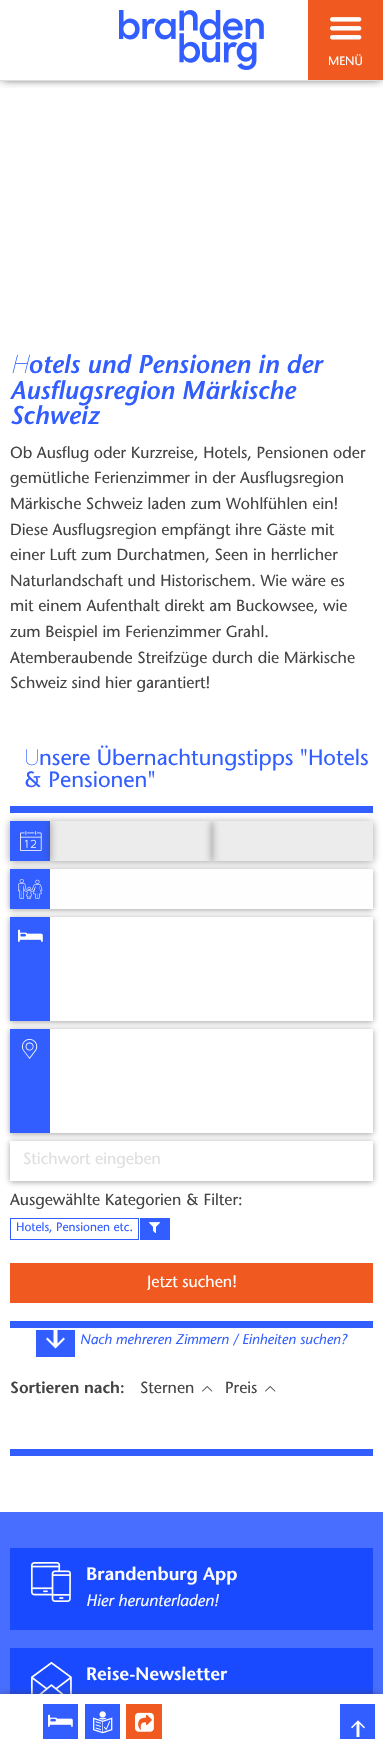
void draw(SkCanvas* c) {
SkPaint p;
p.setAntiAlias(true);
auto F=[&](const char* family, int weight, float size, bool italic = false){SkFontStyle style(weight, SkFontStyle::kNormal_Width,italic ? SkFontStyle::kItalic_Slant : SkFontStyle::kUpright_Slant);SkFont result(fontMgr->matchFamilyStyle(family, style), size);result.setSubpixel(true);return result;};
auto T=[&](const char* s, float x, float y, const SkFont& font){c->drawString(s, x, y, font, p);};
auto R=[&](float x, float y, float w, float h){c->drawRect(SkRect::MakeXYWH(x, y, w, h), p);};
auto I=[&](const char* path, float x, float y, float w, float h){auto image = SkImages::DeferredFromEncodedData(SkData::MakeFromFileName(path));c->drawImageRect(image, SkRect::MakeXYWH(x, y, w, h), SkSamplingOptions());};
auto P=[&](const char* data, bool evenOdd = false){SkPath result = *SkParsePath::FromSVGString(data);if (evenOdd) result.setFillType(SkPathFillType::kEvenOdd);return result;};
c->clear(0xffffffff);
c->save();
c->clipRect(SkRect::MakeXYWH(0,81,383,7));
p.setColor(0xff444444);
p.setMaskFilter(SkMaskFilter::MakeBlur(kNormal_SkBlurStyle, 4.5));
c->drawRect(SkRect::MakeXYWH(2,2,379,77),p);
p.setMaskFilter(nullptr);
c->restore();
p.setColor(0xffdedede);
R(0,80,383,1);
I("1.png",119,10,145,60);
p.setColor(0xfff0591f);
R(308,0,75,80);
I("2.png",330,17,32,23);
auto f1 = F("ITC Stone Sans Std",500,12);
p.setColor(0xfffefefe);
T("MENÜ",328,65,f1);
auto f2 = F("Noto Sans",100,25.6,true);
p.setColor(0xff325eff);
T("H",10,373,f2);
auto f3 = F("ITC Stone Sans Std",600,25.6,true);
T("otels und Pensionen in der",28,373,f3);
T("Ausflugsregion Märkische",10,399,f3);
T("Schweiz",10,424,f3);
auto f4 = F("ITC Stone Sans Std",500,16);
p.setColor(0xff444444);
T("Ob Ausflug oder Kurzreise, Hotels, Pensionen oder",10,458,f4);
T("gemütliche Ferienzimmer in der Ausflugsregion",10,483,f4);
T("Märkische Schweiz laden zum Wohlfühlen ein!",10,509,f4);
T("Diese Ausflugsregion empfängt ihre Gäste mit",10,535,f4);
T("einer Luft zum Durchatmen, Seen in herrlicher",10,560,f4);
T("Naturlandschaft und Historischem. Wie wäre es",10,586,f4);
T("mit einem Aufenthalt direkt am Buckowsee, wie",10,611,f4);
T("zum Beispiel im Ferienzimmer Grahl.",10,637,f4);
T("Atemberaubende Streifzüge durch die Märkische",10,663,f4);
T("Schweiz sind hier garantiert!",10,688,f4);
auto f5 = F("Noto Sans",100,22);
p.setColor(0xff325eff);
T("U",24,765,f5);
auto f6 = F("ITC Stone Sans Std",500,22);
T("nsere Übernachtungstipps \"Hotels",39,765,f6);
T("& Pensionen\"",24,787,f6);
R(10,806,363,7);
p.setColor(0x80444444);
p.setMaskFilter(SkMaskFilter::MakeBlur(kNormal_SkBlurStyle, 4));
c->drawRect(SkRect::MakeXYWH(10,822,40,40),p);
p.setMaskFilter(nullptr);
p.setColor(0xff325eff);
R(10,821,40,40);
I("3.png",20,831,22,20);
c->save();
c->clipPath(P("M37 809h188v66h-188zm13 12h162v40h-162z",true),true);
p.setColor(0x80444444);
p.setMaskFilter(SkMaskFilter::MakeBlur(kNormal_SkBlurStyle, 4));
c->drawRect(SkRect::MakeXYWH(50,822,162,40),p);
p.setMaskFilter(nullptr);
c->restore();
p.setColor(0x1a444444);
R(50,821,162,40);
c->save();
c->clipPath(P("M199 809h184v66h-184zm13 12h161v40h-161z",true),true);
p.setColor(0x80444444);
p.setMaskFilter(SkMaskFilter::MakeBlur(kNormal_SkBlurStyle, 4));
c->drawRect(SkRect::MakeXYWH(212,822,161,40),p);
p.setMaskFilter(nullptr);
c->restore();
p.setColor(0x1a444444);
R(212,821,161,40);
p.setColor(0x80444444);
p.setMaskFilter(SkMaskFilter::MakeBlur(kNormal_SkBlurStyle, 3));
c->drawRect(SkRect::MakeXYWH(10,870,363,40),p);
p.setMaskFilter(nullptr);
p.setColor(0xfffefefe);
R(50,869,323,40);
p.setColor(0xff325eff);
R(10,869,40,40);
I("4.png",18,879,25,20);
c->save();
c->clipPath(P("M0 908h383v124h-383zm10 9h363v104h-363z",true),true);
p.setColor(0x80444444);
p.setMaskFilter(SkMaskFilter::MakeBlur(kNormal_SkBlurStyle, 3));
c->drawRect(SkRect::MakeXYWH(10,918,363,104),p);
p.setMaskFilter(nullptr);
c->restore();
p.setColor(0xff325eff);
R(10,917,40,104);
I("5.png",18,929,25,13);
c->save();
c->clipPath(P("M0 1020h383v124h-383zm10 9h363v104h-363z",true),true);
p.setColor(0x80444444);
p.setMaskFilter(SkMaskFilter::MakeBlur(kNormal_SkBlurStyle, 3));
c->drawRect(SkRect::MakeXYWH(10,1030,363,104),p);
p.setMaskFilter(nullptr);
c->restore();
p.setColor(0xff325eff);
R(10,1029,40,104);
I("6.png",22,1039,16,20);
c->save();
c->clipPath(P("M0 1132h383v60h-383zm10 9h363v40h-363z",true),true);
p.setColor(0x80444444);
p.setMaskFilter(SkMaskFilter::MakeBlur(kNormal_SkBlurStyle, 3));
c->drawRect(SkRect::MakeXYWH(10,1142,363,40),p);
p.setMaskFilter(nullptr);
c->restore();
p.setColor(0xffdedede);
T("Stichwort eingeben",23,1164,f4);
p.setColor(0xff444444);
T("Ausgewählte Kategorien & Filter:",10,1205,f4);
p.setStroke(true);
p.setStrokeWidth(1);
p.setColor(0xff325eff);
c->drawRect(SkRect::MakeXYWH(10.5,1218.5,128,21),p);
p.setStroke(false);
T("Hotels, Pensionen etc.",16,1231,f1);
R(140,1218,30,22);
I("7.png",149,1222,11,12);
p.setColor(0xfff0591f);
R(10,1263,363,40);
p.setColor(0xfffefefe);
T("Jetzt suchen!",147,1287,f4);
p.setColor(0xff325eff);
R(10,1321,363,7);
R(36,1330,39,27);
c->save();
c->clipRect(SkRect::MakeXYWH(36,1330,39,27));
p.setColor(0xfffefefe);
c->drawPath(P("M57.5 1318.5v25l6-6l1.5 1.5l-9.5 9.5l-9.5-9.5l1.5-1.5l6 6v-25z"),p);
c->restore();
auto f7 = F("ITC Stone Sans Std",500,14,true);
p.setColor(0xff325eff);
T("Nach mehreren Zimmern / Einheiten suchen?",80,1344,f7);
auto f8 = F("ITC Stone Sans Std",600,16);
p.setColor(0xff444444);
T("Sortieren nach:",10,1393,f8);
T("Sternen",140,1393,f4);
I("8.png",202,1386,11,6);
T("Preis",225,1393,f4);
I("8.png",265,1386,11,6);
p.setColor(0xff325eff);
R(10,1449,363,7);
p.setColor(0xff476eff);
R(0,1512,383,182);
p.setColor(0xff194aff);
R(10,1548,363,82);
I("9.png",31,1562,40,40);
auto f9 = F("ITC Stone Sans Std",600,18);
p.setColor(0xfffefefe);
T("Brandenburg App",86,1580,f9);
auto f10 = F("ITC Stone Sans Std",500,16.25,true);
T("Hier herunterladen!",86,1606,f10);
p.setColor(0xff194aff);
R(10,1648,363,46);
I("10.png",31,1662,41,32);
p.setColor(0xfffefefe);
T("Reise-Newsletter",86,1680,f9);
p.setColor(0xff444444);
p.setMaskFilter(SkMaskFilter::MakeBlur(kNormal_SkBlurStyle, 4.5));
c->drawRect(SkRect::MakeXYWH(2,1696,379,51),p);
p.setMaskFilter(nullptr);
p.setColor(0xffffffff);
R(0,1694,383,55);
p.setColor(0xff325eff);
R(43,1704,35,35);
I("5.png",48,1714,25,13);
R(85,1704,35,35);
I("11.png",93,1711,20,23);
p.setColor(0xfff0591f);
R(126,1704,36,35);
I("12.png",135,1712,19,20);
p.setColor(0xff325eff);
R(340,1704,35,35);
I("13.png",351,1720,14,17);
}
